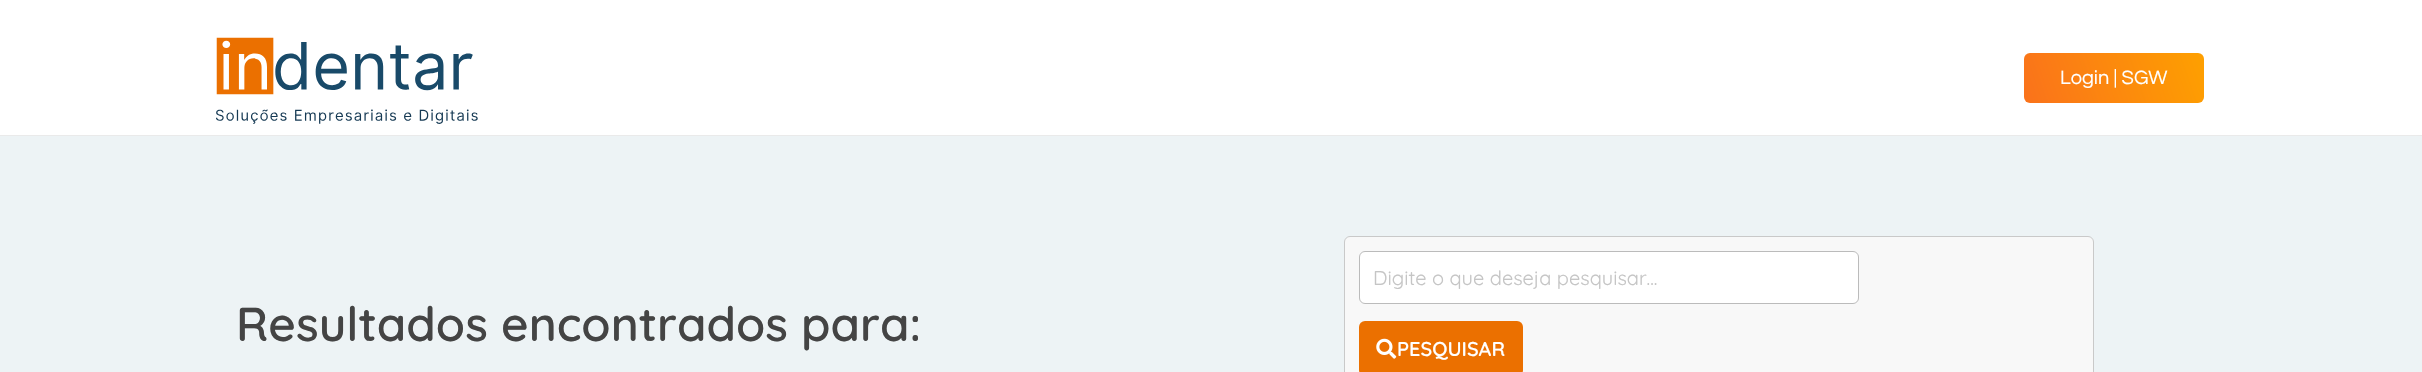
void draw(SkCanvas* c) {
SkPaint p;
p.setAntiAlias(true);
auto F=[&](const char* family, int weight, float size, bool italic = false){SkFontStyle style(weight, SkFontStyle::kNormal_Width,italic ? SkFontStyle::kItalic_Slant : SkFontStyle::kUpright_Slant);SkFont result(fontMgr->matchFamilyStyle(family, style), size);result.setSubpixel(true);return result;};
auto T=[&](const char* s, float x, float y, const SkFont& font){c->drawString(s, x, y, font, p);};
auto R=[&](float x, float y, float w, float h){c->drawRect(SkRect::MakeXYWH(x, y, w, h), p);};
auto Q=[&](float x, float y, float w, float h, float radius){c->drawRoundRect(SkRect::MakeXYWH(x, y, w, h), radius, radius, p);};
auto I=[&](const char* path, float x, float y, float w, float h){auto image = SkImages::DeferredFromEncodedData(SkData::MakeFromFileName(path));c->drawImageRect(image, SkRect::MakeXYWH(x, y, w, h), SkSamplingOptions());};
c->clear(0xffffffff);
I("1.png",216,37,262,87);
{
const SkColor colors[] = {0xfffea000,0xfffa721b};
const float stops[] = {0,1};
const SkPoint ends[] = {{2202,47}, {2026,108}};
p.setShader(SkGradientShader::MakeLinear(ends, colors, stops, 2, SkTileMode::kClamp));
p.setAlpha(255);
}
Q(2024,53,180,50,6);
auto f1 = F("Questrial",400,20);
p.setShader(nullptr);
p.setColor(0xffffffff);
T("Login | SGW",2060,84,f1);
p.setColor(0xffeaeaea);
R(0,135,2422,1);
p.setColor(0xffedf3f5);
R(0,136,2422,236);
auto f2 = F("Quicksand",600,47.5);
p.setColor(0xff444444);
T("Resultados encontrados para:",236,341,f2);
p.setColor(0xfff8f8f8);
c->drawRoundRect(SkRect::MakeXYWH(1344.5,236.5,749,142),5.5,5.5,p);
p.setStroke(true);
p.setStrokeWidth(1);
p.setColor(0xffc9c9c9);
c->drawRoundRect(SkRect::MakeXYWH(1344.5,236.5,749,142),5.5,5.5,p);
p.setStroke(false);
p.setColor(0xffffffff);
c->drawRoundRect(SkRect::MakeXYWH(1359.5,251.5,499,52),5.5,5.5,p);
p.setStroke(true);
p.setColor(0xffbbbbbb);
c->drawRoundRect(SkRect::MakeXYWH(1359.5,251.5,499,52),5.5,5.5,p);
auto f3 = F("Quicksand",400,20);
p.setStroke(false);
p.setColor(0xffc5c5c5);
T("Digite o que deseja pesquisar...",1373,285,f3);
p.setColor(0xffeb7000);
Q(1359,321,164,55,6);
I("2.png",1376,338,21,21);
auto f4 = F("Quicksand",600,20);
p.setColor(0xffffffff);
T("PESQUISAR",1397,356,f4);
}
